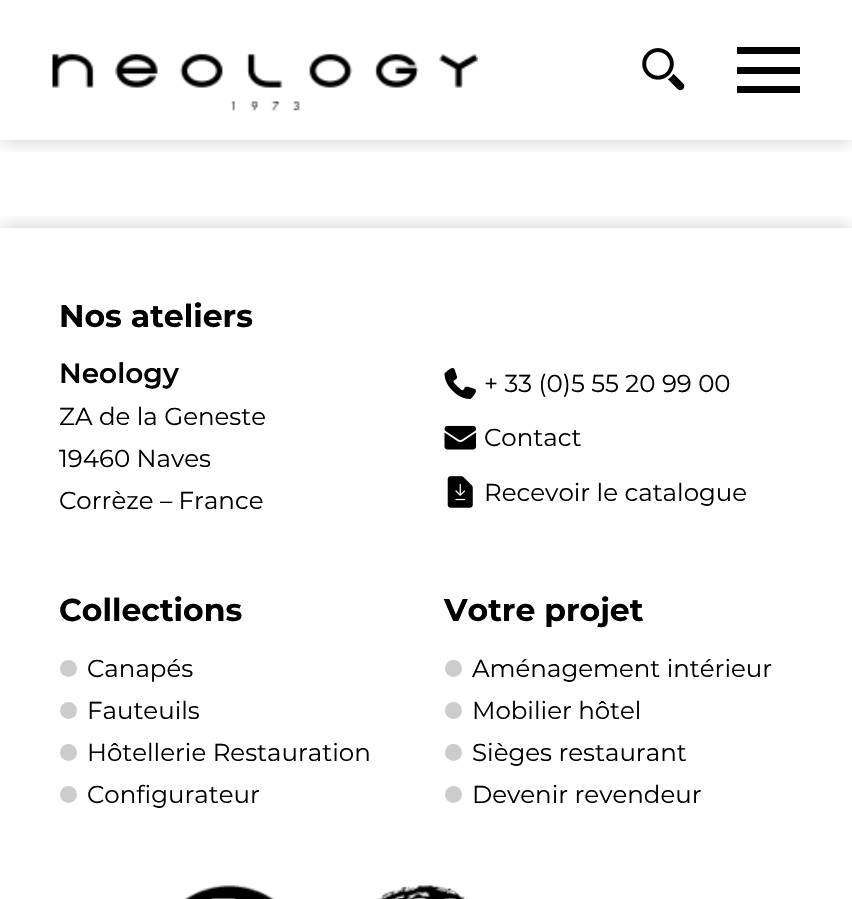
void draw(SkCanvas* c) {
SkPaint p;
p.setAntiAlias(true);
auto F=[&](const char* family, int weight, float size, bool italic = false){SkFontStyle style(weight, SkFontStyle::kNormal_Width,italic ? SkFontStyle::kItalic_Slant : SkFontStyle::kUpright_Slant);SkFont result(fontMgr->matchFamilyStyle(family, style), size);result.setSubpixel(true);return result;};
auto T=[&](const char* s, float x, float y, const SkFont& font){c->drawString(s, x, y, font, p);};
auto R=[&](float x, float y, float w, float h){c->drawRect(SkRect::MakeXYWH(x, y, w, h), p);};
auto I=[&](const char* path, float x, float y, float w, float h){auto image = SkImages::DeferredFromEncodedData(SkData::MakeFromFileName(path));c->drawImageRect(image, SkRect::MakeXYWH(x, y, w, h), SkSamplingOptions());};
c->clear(0xffffffff);
c->save();
c->clipRect(SkRect::MakeXYWH(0,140,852,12));
p.setColor(0x33000000);
p.setMaskFilter(SkMaskFilter::MakeBlur(kNormal_SkBlurStyle, 9));
c->drawRect(SkRect::MakeXYWH(0,0,852,140),p);
p.setMaskFilter(nullptr);
c->restore();
I("1.png",52,53,426,58);
I("2.png",642,48,43,43);
p.setColor(0xff000000);
R(737,47,63,7);
R(737,67,63,7);
R(737,86,63,7);
c->save();
c->clipRect(SkRect::MakeXYWH(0,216,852,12));
p.setColor(0x33000000);
p.setMaskFilter(SkMaskFilter::MakeBlur(kNormal_SkBlurStyle, 9));
c->drawRect(SkRect::MakeXYWH(0,228,852,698),p);
p.setMaskFilter(nullptr);
c->restore();
auto f1 = F("Montserrat",700,31.5);
p.setColor(0xff000000);
T("Nos ateliers",59,327,f1);
auto f2 = F("Montserrat",600,28);
T("Neology",59,383,f2);
auto f3 = F("Montserrat",400,24.5);
T("ZA de la Geneste",59,425,f3);
T("19460 Naves",59,467,f3);
T("Corrèze – France",59,509,f3);
I("3.png",444,368,32,31);
T("+ 33 (0)5 55 20 99 00",484,392,f3);
I("4.png",444,425,32,25);
T("Contact",484,446,f3);
I("5.png",447,476,26,32);
T("Recevoir le catalogue",484,501,f3);
T("Collections",59,621,f1);
p.setColor(0xffcccccc);
c->drawCircle(68.5,668.5,8.5,p);
p.setColor(0xff000000);
T("Canapés",87,677,f3);
p.setColor(0xffcccccc);
c->drawCircle(68.5,710.5,8.5,p);
p.setColor(0xff000000);
T("Fauteuils",87,719,f3);
p.setColor(0xffcccccc);
c->drawCircle(68.5,752.5,8.5,p);
p.setColor(0xff000000);
T("Hôtellerie Restauration",87,761,f3);
p.setColor(0xffcccccc);
c->drawCircle(68.5,794.5,8.5,p);
p.setColor(0xff000000);
T("Configurateur",87,803,f3);
T("Votre projet",444,621,f1);
p.setColor(0xffcccccc);
c->drawCircle(453.5,668.5,8.5,p);
p.setColor(0xff000000);
T("Aménagement intérieur",472,677,f3);
p.setColor(0xffcccccc);
c->drawCircle(453.5,710.5,8.5,p);
p.setColor(0xff000000);
T("Mobilier hôtel",472,719,f3);
p.setColor(0xffcccccc);
c->drawCircle(453.5,752.5,8.5,p);
p.setColor(0xff000000);
T("Sièges restaurant",472,761,f3);
p.setColor(0xffcccccc);
c->drawCircle(453.5,794.5,8.5,p);
p.setColor(0xff000000);
T("Devenir revendeur",472,803,f3);
I("6.png",184,885,91,14);
I("7.png",377,885,92,14);
}
